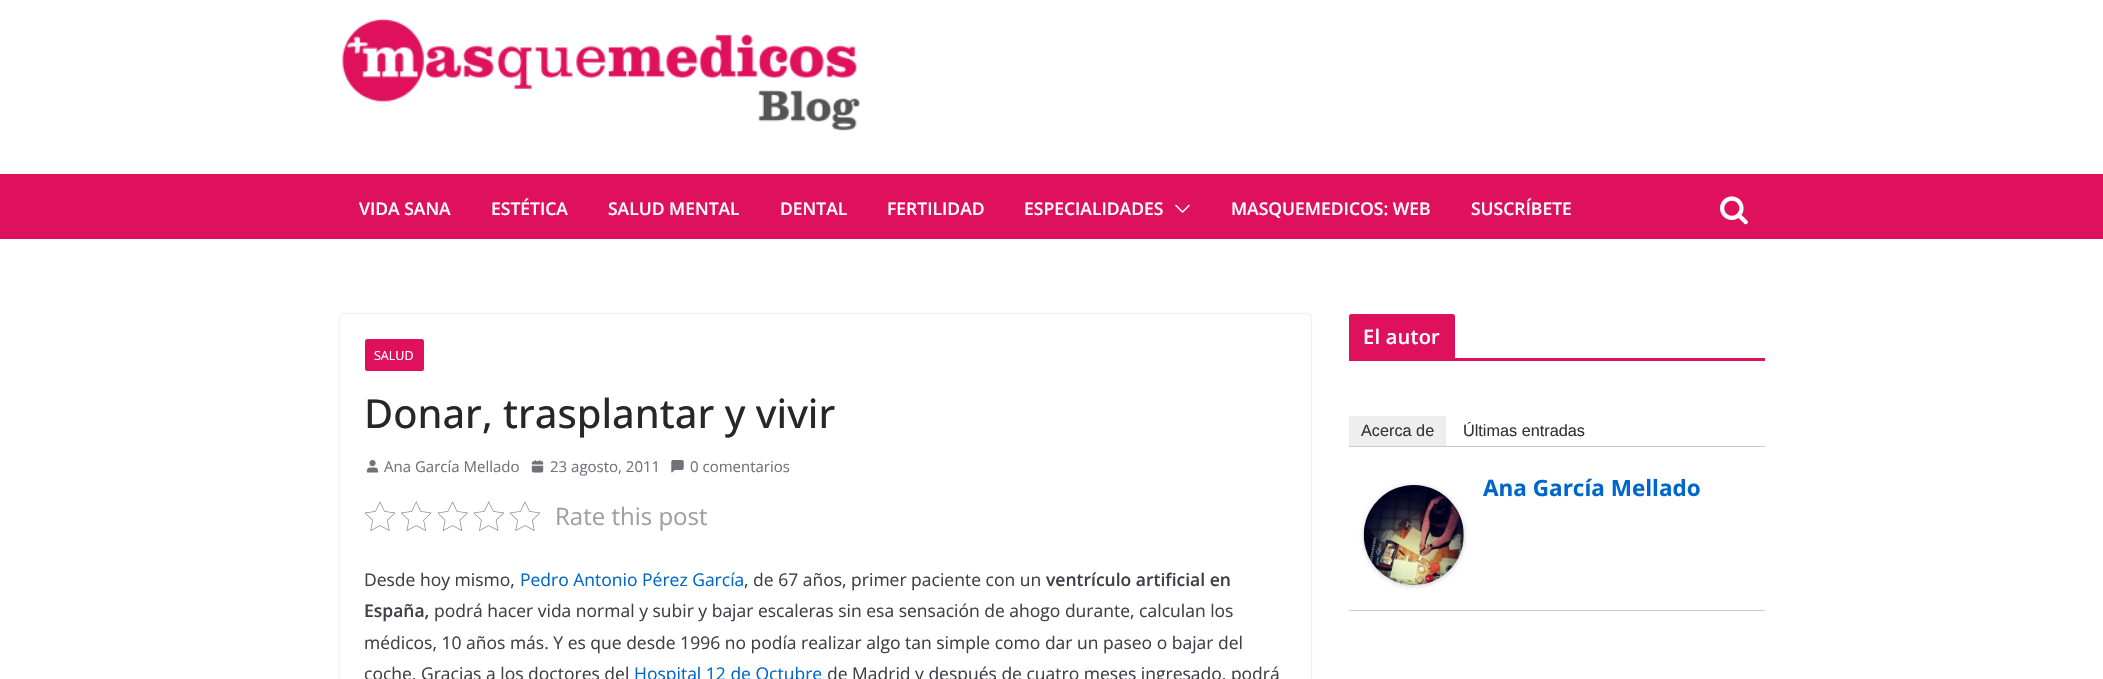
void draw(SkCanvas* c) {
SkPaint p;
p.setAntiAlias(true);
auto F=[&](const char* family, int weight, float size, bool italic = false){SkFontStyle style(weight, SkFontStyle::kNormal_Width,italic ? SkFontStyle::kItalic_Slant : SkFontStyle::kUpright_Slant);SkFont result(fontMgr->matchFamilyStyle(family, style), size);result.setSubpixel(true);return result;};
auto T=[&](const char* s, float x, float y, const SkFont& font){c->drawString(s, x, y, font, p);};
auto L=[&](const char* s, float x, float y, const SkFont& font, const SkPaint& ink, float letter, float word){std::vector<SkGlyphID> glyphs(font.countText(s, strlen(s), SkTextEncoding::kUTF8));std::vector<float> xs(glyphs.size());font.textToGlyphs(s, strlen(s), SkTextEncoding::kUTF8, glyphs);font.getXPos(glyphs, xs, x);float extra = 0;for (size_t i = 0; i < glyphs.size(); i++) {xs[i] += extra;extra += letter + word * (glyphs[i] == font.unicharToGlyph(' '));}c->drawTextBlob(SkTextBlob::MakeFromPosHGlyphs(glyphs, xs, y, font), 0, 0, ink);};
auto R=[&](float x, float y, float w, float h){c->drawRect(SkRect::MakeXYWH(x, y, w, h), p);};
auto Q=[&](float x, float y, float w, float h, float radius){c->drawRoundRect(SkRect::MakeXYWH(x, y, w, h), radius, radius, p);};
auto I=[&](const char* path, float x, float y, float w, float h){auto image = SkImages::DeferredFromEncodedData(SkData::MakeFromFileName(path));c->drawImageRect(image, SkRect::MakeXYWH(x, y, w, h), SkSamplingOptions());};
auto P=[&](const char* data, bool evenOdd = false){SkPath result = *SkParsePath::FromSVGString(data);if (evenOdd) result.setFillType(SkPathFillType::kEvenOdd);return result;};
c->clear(0xffffffff);
I("1.png",342,18,518,113);
p.setColor(0xffe0115c);
R(0,174,2103,65);
auto f1 = F("Open Sans",600,17.5);
p.setColor(0xffffffff);
T("VIDA SANA",359,215,f1);
T("ESTÉTICA",491,215,f1);
T("SALUD MENTAL",608,215,f1);
T("DENTAL",780,215,f1);
T("FERTILIDAD",887,215,f1);
T("ESPECIALIDADES",1024,215,f1);
I("2.png",1175,204,15,9);
T("MASQUEMEDICOS: WEB",1231,215,f1);
T("SUSCRÍBETE",1471,215,f1);
I("3.png",1720,196,28,29);
c->save();
c->clipPath(P("M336 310h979v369h-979zm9 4h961c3 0 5 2 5 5v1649c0 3-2 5-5 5h-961c-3 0-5-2-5-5v-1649c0-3 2-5 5-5z",true),true);
p.setColor(0x3d000000);
p.setMaskFilter(SkMaskFilter::MakeBlur(kNormal_SkBlurStyle, 1));
c->drawRoundRect(SkRect::MakeXYWH(340,314,971,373),5,5,p);
p.setMaskFilter(nullptr);
c->restore();
p.setColor(0xffe0115c);
Q(365,339,59,32,2.5);
auto f2 = F("Open Sans",400,12.5);
p.setColor(0xffffffff);
T("SALUD",374,360,f2);
auto f3 = F("Open Sans",500,40);
p.setColor(0xff27272a);
T("Donar, trasplantar y vivir",364,428,f3);
I("4.png",366,460,13,13);
auto f4 = F("Open Sans",400,15);
p.setColor(0xff71717a);
T("Ana García Mellado",384,472,f4);
I("5.png",531,460,13,13);
T("23 agosto, 2011",550,472,f4);
I("6.png",671,460,13,13);
T("0 comentarios",690,472,f4);
I("7.png",365,501,30,30);
I("8.png",401,501,30,30);
I("9.png",438,501,30,30);
I("10.png",474,501,30,30);
I("7.png",510,501,30,30);
auto f5 = F("Open Sans",400,24);
p.setColor(0xff9f9fa3);
T("Rate this post",555,525,f5);
auto f6 = F("Open Sans",400,17.5);
p.setColor(0xff3f3f46);
T("Desde hoy mismo,",364,586,f6);
p.setColor(0xff0066cc);
T("Pedro Antonio Pérez García",520,586,f6);
p.setColor(0xff3f3f46);
T(", de 67 años, primer paciente con un",744,586,f6);
T("ventrículo artificial en",1046,586,f1);
T("España,",364,617,f1);
T("podrá hacer vida normal y subir y bajar escaleras sin esa sensación de ahogo durante, calculan los",434,617,f6);
T("médicos, 10 años más. Y es que desde 1996 no podía realizar algo tan simple como dar un paseo o bajar del",364,649,f6);
T("coche. Gracias a los doctores del",364,680,f6);
p.setColor(0xff0066cc);
T("Hospital 12 de Octubre",634,680,f6);
p.setColor(0xff3f3f46);
T("de Madrid y después de cuatro meses ingresado, podrá",827,680,f6);
p.setColor(0xffe0115c);
R(1349,358,416,3);
c->drawPath(P("M1351.5 314h101c1.5 0 2.5 1 2.5 2.5v41.5h-106v-41.5c0-1.5 1-2.5 2.5-2.5z"),p);
auto f7 = F("Open Sans",600,20);
p.setColor(0xffffffff);
L("El autor",1363,344,f7,p,.25,0);
p.setColor(0xffcccccc);
R(1349,446,416,1);
p.setColor(0xffeeeeee);
R(1349,416,97,30);
auto f8 = F("Liberation Sans",400,16.25);
p.setColor(0xff333333);
T("Acerca de",1361,436,f8);
T("Últimas entradas",1463,436,f8);
p.setColor(0xffcccccc);
R(1349,610,416,1);
p.setColor(0x33000000);
p.setMaskFilter(SkMaskFilter::MakeBlur(kNormal_SkBlurStyle, 2.5));
c->drawRoundRect(SkRect::MakeXYWH(1364,486,100,100),50,50,p);
p.setMaskFilter(nullptr);
I("11.png",1363,485,101,100);
auto f9 = F("Open Sans",700,22.5);
p.setColor(0xff0066cc);
T("Ana García Mellado",1483,496,f9);
}
